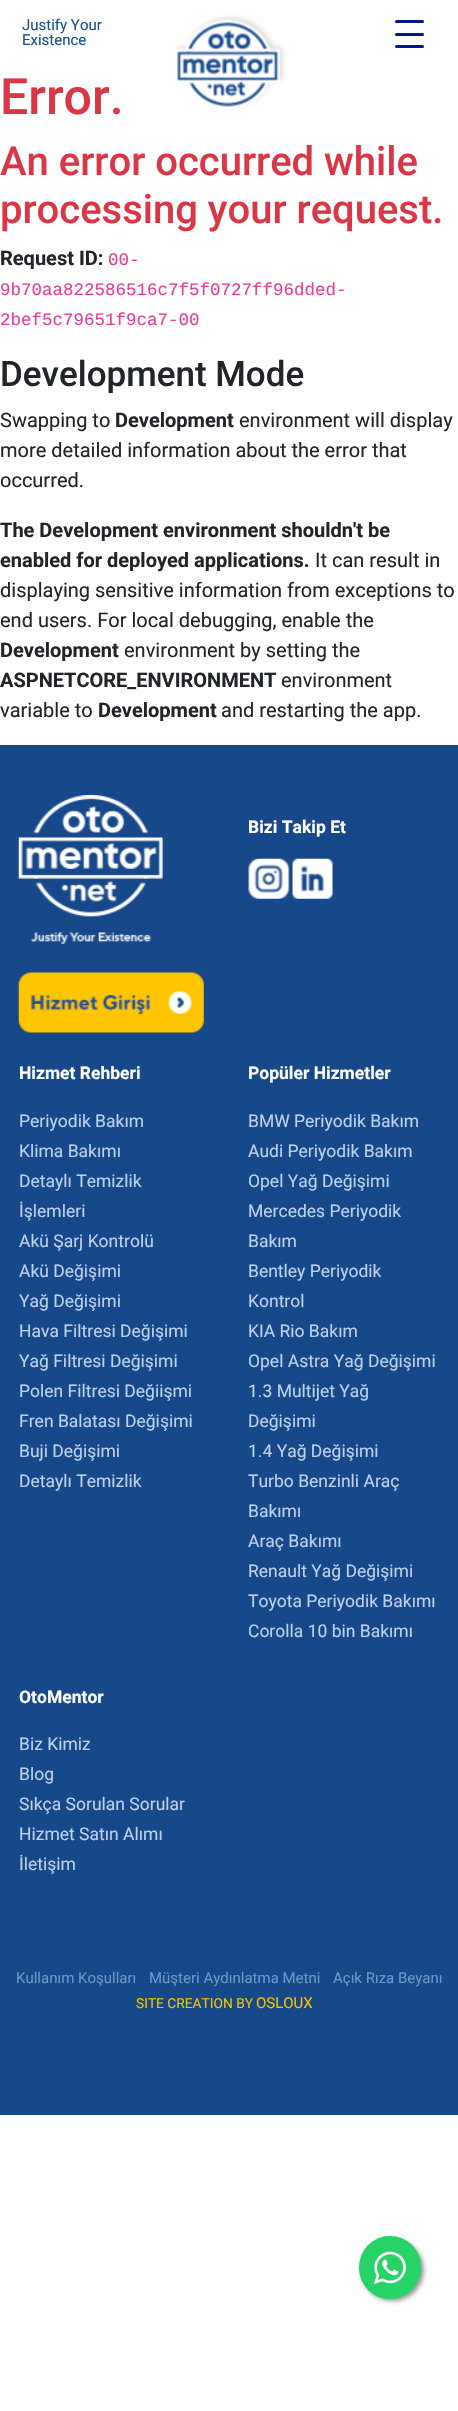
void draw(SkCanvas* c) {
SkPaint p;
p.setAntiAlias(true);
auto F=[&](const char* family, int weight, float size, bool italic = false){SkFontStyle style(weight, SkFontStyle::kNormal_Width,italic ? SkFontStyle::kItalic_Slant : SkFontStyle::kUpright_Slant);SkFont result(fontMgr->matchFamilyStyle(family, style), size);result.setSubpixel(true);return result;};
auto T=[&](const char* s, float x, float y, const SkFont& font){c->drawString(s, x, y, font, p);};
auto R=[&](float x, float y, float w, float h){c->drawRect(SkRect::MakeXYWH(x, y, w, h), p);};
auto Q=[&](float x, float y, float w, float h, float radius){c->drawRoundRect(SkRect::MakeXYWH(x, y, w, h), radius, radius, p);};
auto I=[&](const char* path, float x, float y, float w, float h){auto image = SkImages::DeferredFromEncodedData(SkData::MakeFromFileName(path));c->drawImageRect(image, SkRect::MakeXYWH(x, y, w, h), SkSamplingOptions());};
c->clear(0xffffffff);
auto f1 = F("Roboto",400,15);
p.setColor(0xff194f90);
T("Justify Your",22,30,f1);
T("Existence",22,45,f1);
I("1.png",175,15,110,94);
p.setColor(0xff001689);
Q(395,20,29,3,1.5);
Q(395,33,29,3,1.5);
Q(395,45,29,3,1.5);
auto f2 = F("Roboto",500,50);
p.setColor(0xffdc3545);
T("Error.",0,114,f2);
auto f3 = F("Roboto",500,40);
T("An error occurred while",0,175,f3);
T("processing your request.",0,223,f3);
auto f4 = F("Roboto",700,20);
p.setColor(0xff212529);
T("Request ID:",0,265,f4);
auto f5 = F("Liberation Mono",400,17.5);
p.setColor(0xffe83e8c);
T("00-",108,265,f5);
T("9b70aa822586516c7f5f0727ff96dded-",0,295,f5);
T("2bef5c79651f9ca7-00",0,325,f5);
auto f6 = F("Roboto",500,35);
p.setColor(0xff212529);
T("Development Mode",0,386,f6);
auto f7 = F("Roboto",400,20);
T("Swapping to",0,427,f7);
T("Development",115,427,f4);
T("environment will display",239,427,f7);
T("more detailed information about the error that",0,457,f7);
T("occurred.",0,487,f7);
T("The Development environment shouldn't be",0,537,f4);
T("enabled for deployed applications.",0,567,f4);
T("It can result in",315,567,f7);
T("displaying sensitive information from exceptions to",0,597,f7);
T("end users. For local debugging, enable the",0,627,f7);
T("Development",0,657,f4);
T("environment by setting the",124,657,f7);
T("ASPNETCORE_ENVIRONMENT",0,687,f4);
T("environment",281,687,f7);
T("variable to",0,717,f7);
T("Development",98,717,f4);
T("and restarting the app.",221,717,f7);
p.setColor(0xff16488a);
R(0,745,458,1370);
I("2.png",18,795,145,149);
I("3.png",18,972,186,61);
auto f8 = F("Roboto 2",700,17.5);
p.setColor(0xffffffff);
T("Bizi Takip Et",248,833,f8);
I("4.png",248,858,42,41);
I("5.png",292,858,41,41);
T("Hizmet Rehberi",19,1079,f8);
auto f9 = F("Roboto",400,17.5);
p.setColor(0xffbfd1eb);
T("Periyodik Bakım",19,1127,f9);
T("Klima Bakımı",19,1157,f9);
T("Detaylı Temizlik",19,1187,f9);
T("İşlemleri",19,1217,f9);
T("Akü Şarj Kontrolü",19,1247,f9);
T("Akü Değişimi",19,1277,f9);
T("Yağ Değişimi",19,1307,f9);
T("Hava Filtresi Değişimi",19,1337,f9);
T("Yağ Filtresi Değişimi",19,1367,f9);
T("Polen Filtresi Değiişmi",19,1397,f9);
T("Fren Balatası Değişimi",19,1427,f9);
T("Buji Değişimi",19,1457,f9);
T("Detaylı Temizlik",19,1487,f9);
p.setColor(0xffffffff);
T("Popüler Hizmetler",248,1079,f8);
p.setColor(0xffbfd1eb);
T("BMW Periyodik Bakım",248,1127,f9);
T("Audi Periyodik Bakım",248,1157,f9);
T("Opel Yağ Değişimi",248,1187,f9);
T("Mercedes Periyodik",248,1217,f9);
T("Bakım",248,1247,f9);
T("Bentley Periyodik",248,1277,f9);
T("Kontrol",248,1307,f9);
T("KIA Rio Bakım",248,1337,f9);
T("Opel Astra Yağ Değişimi",248,1367,f9);
T("1.3 Multijet Yağ",248,1397,f9);
T("Değişimi",248,1427,f9);
T("1.4 Yağ Değişimi",248,1457,f9);
T("Turbo Benzinli Araç",248,1487,f9);
T("Bakımı",248,1517,f9);
T("Araç Bakımı",248,1547,f9);
T("Renault Yağ Değişimi",248,1577,f9);
T("Toyota Periyodik Bakımı",248,1607,f9);
T("Corolla 10 bin Bakımı",248,1637,f9);
p.setColor(0xffffffff);
T("OtoMentor",19,1703,f8);
p.setColor(0xffbfd1eb);
T("Biz Kimiz",19,1750,f9);
T("Blog",19,1780,f9);
T("Sıkça Sorulan Sorular",19,1810,f9);
T("Hizmet Satın Alımı",19,1840,f9);
T("İletişim",19,1870,f9);
p.setColor(0xff6f96c9);
T("Kullanım Koşulları",16,1983,f1);
T("Müşteri Aydınlatma Metni",149,1983,f1);
T("Açık Rıza Beyanı",333,1983,f1);
auto f10 = F("Roboto",400,13.75);
p.setColor(0xfff3c300);
T("SITE CREATION BY",136,2008,f10);
T("OSLOUX",256,2008,f1);
p.setColor(0xff999999);
p.setMaskFilter(SkMaskFilter::MakeBlur(kNormal_SkBlurStyle, 2));
c->drawRoundRect(SkRect::MakeXYWH(361,2239,63,62),31,31,p);
p.setMaskFilter(nullptr);
p.setColor(0xff25d366);
Q(359,2236,62,63,31);
I("6.png",373,2251,33,33);
}
